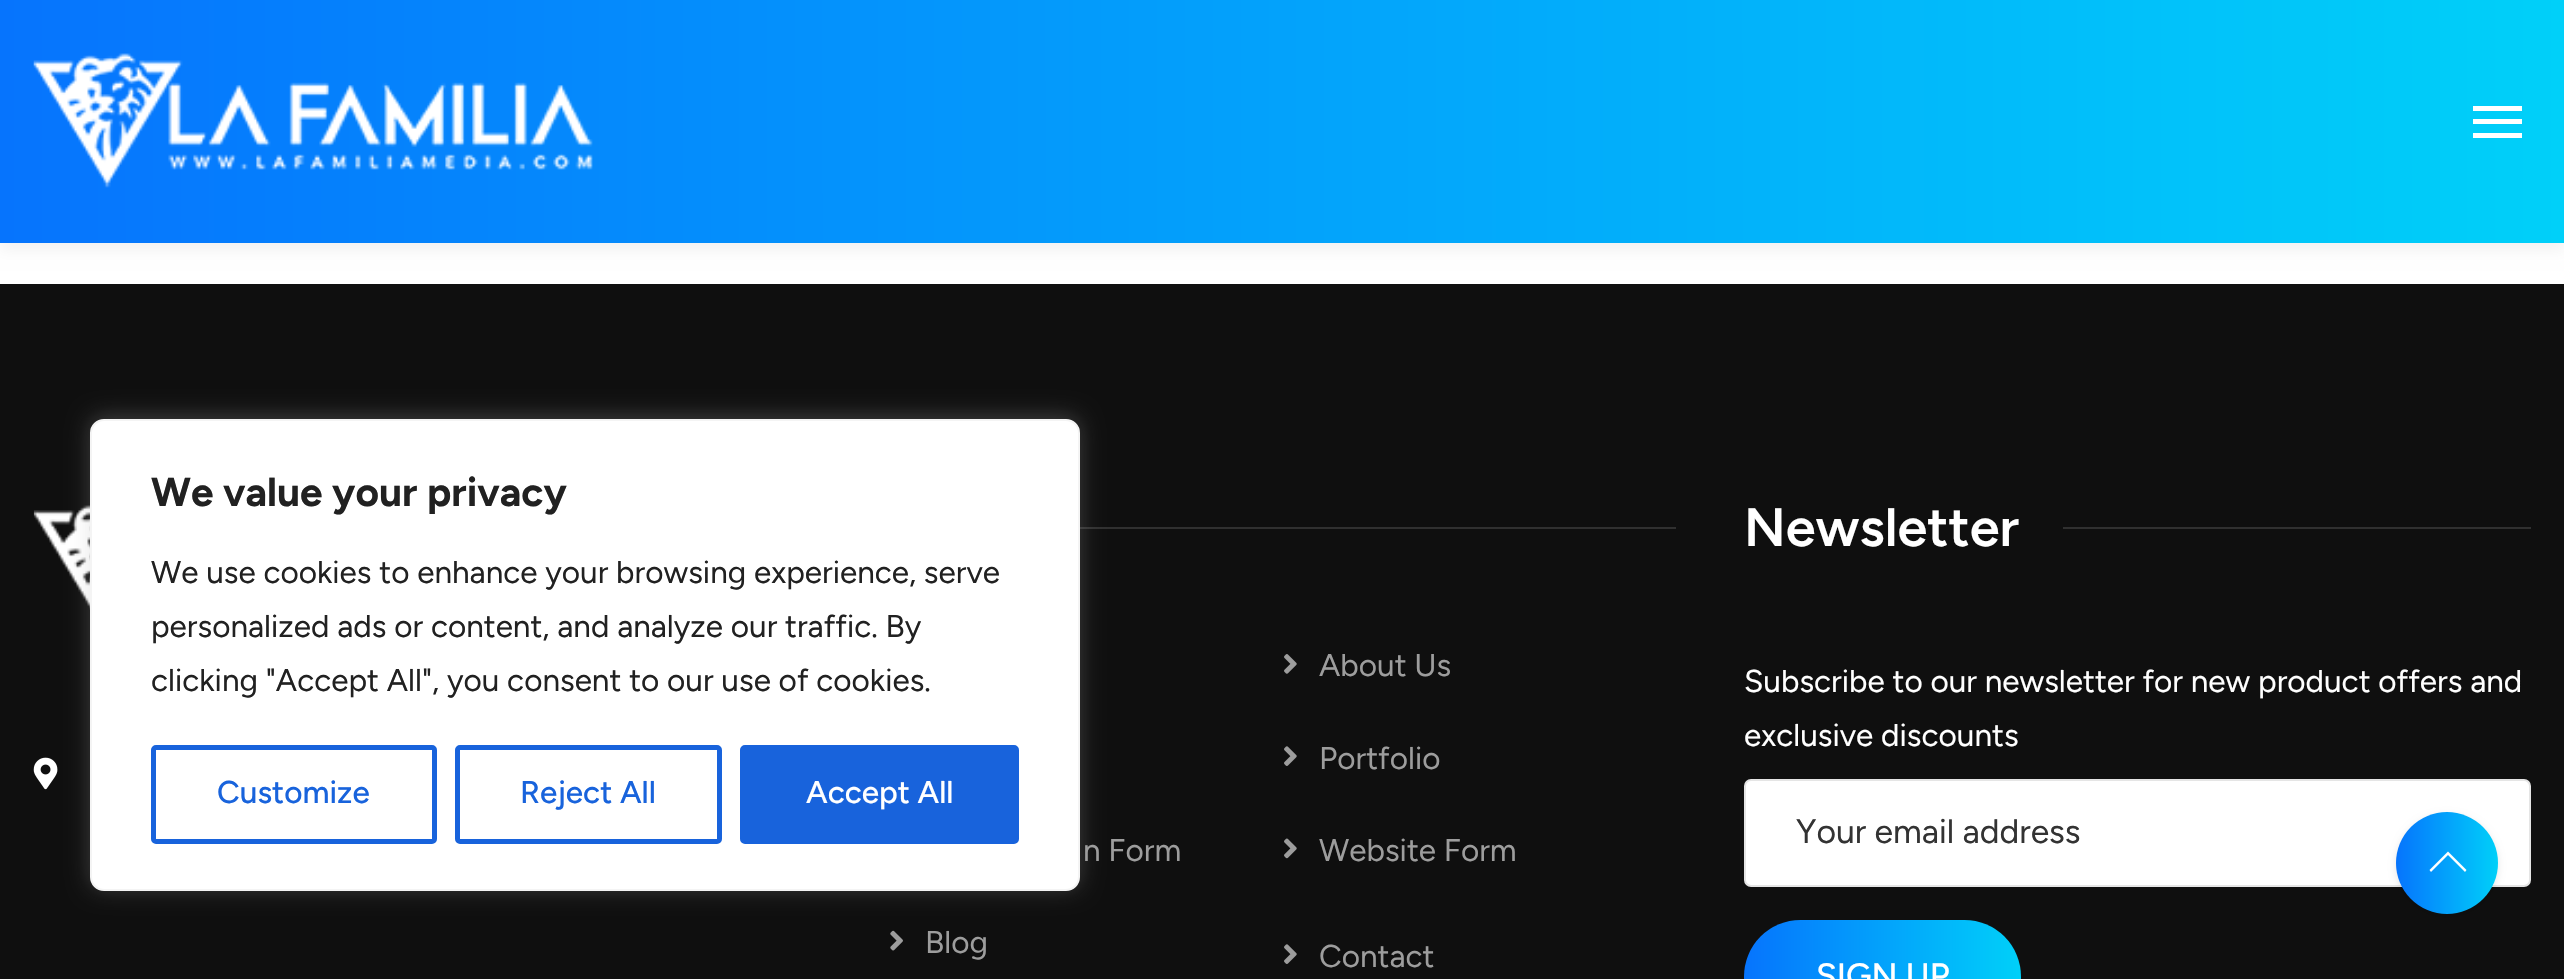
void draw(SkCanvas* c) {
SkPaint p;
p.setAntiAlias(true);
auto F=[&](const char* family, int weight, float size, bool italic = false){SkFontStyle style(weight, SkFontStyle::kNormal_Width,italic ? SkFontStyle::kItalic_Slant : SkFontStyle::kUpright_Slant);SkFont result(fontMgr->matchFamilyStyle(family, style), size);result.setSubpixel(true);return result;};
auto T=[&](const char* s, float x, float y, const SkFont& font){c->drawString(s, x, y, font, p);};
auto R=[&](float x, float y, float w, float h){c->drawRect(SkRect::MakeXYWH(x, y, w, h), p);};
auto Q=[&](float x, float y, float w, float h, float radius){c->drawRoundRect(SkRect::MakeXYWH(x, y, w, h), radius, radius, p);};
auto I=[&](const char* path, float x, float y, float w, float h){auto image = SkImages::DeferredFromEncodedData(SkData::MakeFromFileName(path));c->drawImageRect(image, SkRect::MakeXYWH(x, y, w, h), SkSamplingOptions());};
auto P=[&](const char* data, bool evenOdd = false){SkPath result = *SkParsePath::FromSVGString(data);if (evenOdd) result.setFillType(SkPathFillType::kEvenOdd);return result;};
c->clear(0xffffffff);
p.setColor(0xff0f0f0f);
R(0,284,2564,695);
I("2.png",33,505,57,105);
I("3.png",33,757,25,33);
p.setColor(0xff303030);
R(1080,527,596,2);
p.setColor(0x4dacabab);
p.setMaskFilter(SkMaskFilter::MakeBlur(kNormal_SkBlurStyle, 11));
c->drawRoundRect(SkRect::MakeXYWH(90,416,990,473),14,14,p);
p.setMaskFilter(nullptr);
p.setColor(0xffffffff);
c->drawRoundRect(SkRect::MakeXYWH(91,420,988,470),13,13,p);
p.setStroke(true);
p.setStrokeWidth(2);
p.setColor(0xfff4f4f4);
c->drawRoundRect(SkRect::MakeXYWH(91,420,988,470),13,13,p);
auto f1 = F("Figtree",700,40.5);
p.setStroke(false);
p.setColor(0xff212121);
T("We value your privacy",151,506,f1);
auto f2 = F("Figtree",400,31.5);
T("We use cookies to enhance your browsing experience, serve",151,583,f2);
T("personalized ads or content, and analyze our traffic. By",151,637,f2);
T("clicking \"Accept All\", you consent to our use of cookies.",151,691,f2);
p.setStroke(true);
p.setStrokeWidth(5);
p.setColor(0xff1863dc);
c->drawRoundRect(SkRect::MakeXYWH(153.5,747.5,281,94),2.5,2.5,p);
auto f3 = F("Figtree",500,31.5);
p.setStroke(false);
T("Customize",217,803,f3);
p.setStroke(true);
c->drawRoundRect(SkRect::MakeXYWH(457.5,747.5,262,94),2.5,2.5,p);
p.setStroke(false);
T("Reject All",520,803,f3);
c->drawRoundRect(SkRect::MakeXYWH(742.5,747.5,274,94),2.5,2.5,p);
p.setStroke(true);
c->drawRoundRect(SkRect::MakeXYWH(742.5,747.5,274,94),2.5,2.5,p);
p.setStroke(false);
p.setColor(0xffffffff);
T("Accept All",806,803,f3);
p.setColor(0x0d000000);
p.setMaskFilter(SkMaskFilter::MakeBlur(kNormal_SkBlurStyle, 7));
c->drawRect(SkRect::MakeXYWH(0,7,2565,243),p);
p.setMaskFilter(nullptr);
{
const SkColor colors[] = {0xff0674fd,0xff00d0f9};
const float stops[] = {0,1};
const SkPoint ends[] = {{0,122}, {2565,121}};
p.setShader(SkGradientShader::MakeLinear(ends, colors, stops, 2, SkTileMode::kClamp));
p.setAlpha(255);
}
R(0,0,2564,243);
I("1.png",33,53,560,135);
p.setShader(nullptr);
p.setColor(0xffffffff);
R(2473,106,49,5);
R(2473,119,49,5);
R(2473,133,49,5);
I("4.png",1284,654,13,20);
p.setColor(0xff9d9d9d);
T("About Us",1319,676,f2);
I("5.png",1284,746,13,20);
T("Portfolio",1319,769,f2);
T("n Form",1083,861,f2);
I("6.png",1284,838,13,21);
T("Website Form",1319,861,f2);
I("7.png",890,930,13,21);
T("Blog",925,953,f2);
I("5.png",1284,944,13,20);
T("Contact",1319,967,f2);
auto f4 = F("Figtree",600,54);
p.setColor(0xffffffff);
T("Newsletter",1744,546,f4);
p.setColor(0xff303030);
R(2063,527,468,2);
p.setColor(0xffffffff);
T("Subscribe to our newsletter for new product offers and",1744,692,f2);
T("exclusive discounts",1744,746,f2);
c->drawRoundRect(SkRect::MakeXYWH(1745,780,785,106),6,6,p);
p.setStroke(true);
p.setStrokeWidth(2);
p.setColor(0xffe5e5e5);
c->drawRoundRect(SkRect::MakeXYWH(1745,780,785,106),6,6,p);
auto f5 = F("Figtree",400,33.75);
p.setStroke(false);
p.setColor(0xff333333);
T("Your email address",1796,843,f5);
{
const SkColor colors[] = {0xff0674fd,0xff00d0f9};
const float stops[] = {0,1};
const SkPoint ends[] = {{1744,977}, {2021,977}};
p.setShader(SkGradientShader::MakeLinear(ends, colors, stops, 2, SkTileMode::kClamp));
p.setAlpha(255);
}
Q(1744,920,277,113,56.5);
auto f6 = F("Figtree",500,33.75);
p.setShader(nullptr);
p.setColor(0xffffffff);
T("SIGN UP",1816,987,f6);
p.setColor(0x1a000000);
p.setMaskFilter(SkMaskFilter::MakeBlur(kNormal_SkBlurStyle, 3.5));
c->drawRoundRect(SkRect::MakeXYWH(2396,815,102,101),50.5,50.5,p);
p.setMaskFilter(nullptr);
{
const SkColor colors[] = {0xff0674fd,0xff00d0f9};
const float stops[] = {0,1};
const SkPoint ends[] = {{2396,863}, {2498,863}};
p.setShader(SkGradientShader::MakeLinear(ends, colors, stops, 2, SkTileMode::kClamp));
p.setAlpha(255);
}
c->drawCircle(2447,863,51,p);
p.setShader(nullptr);
p.setColor(0xffffffff);
c->drawPath(P("M2466.5 870l-1.5 2l-17-17l-17 17l-1.5-2l18.5-18.5z"),p);
}
